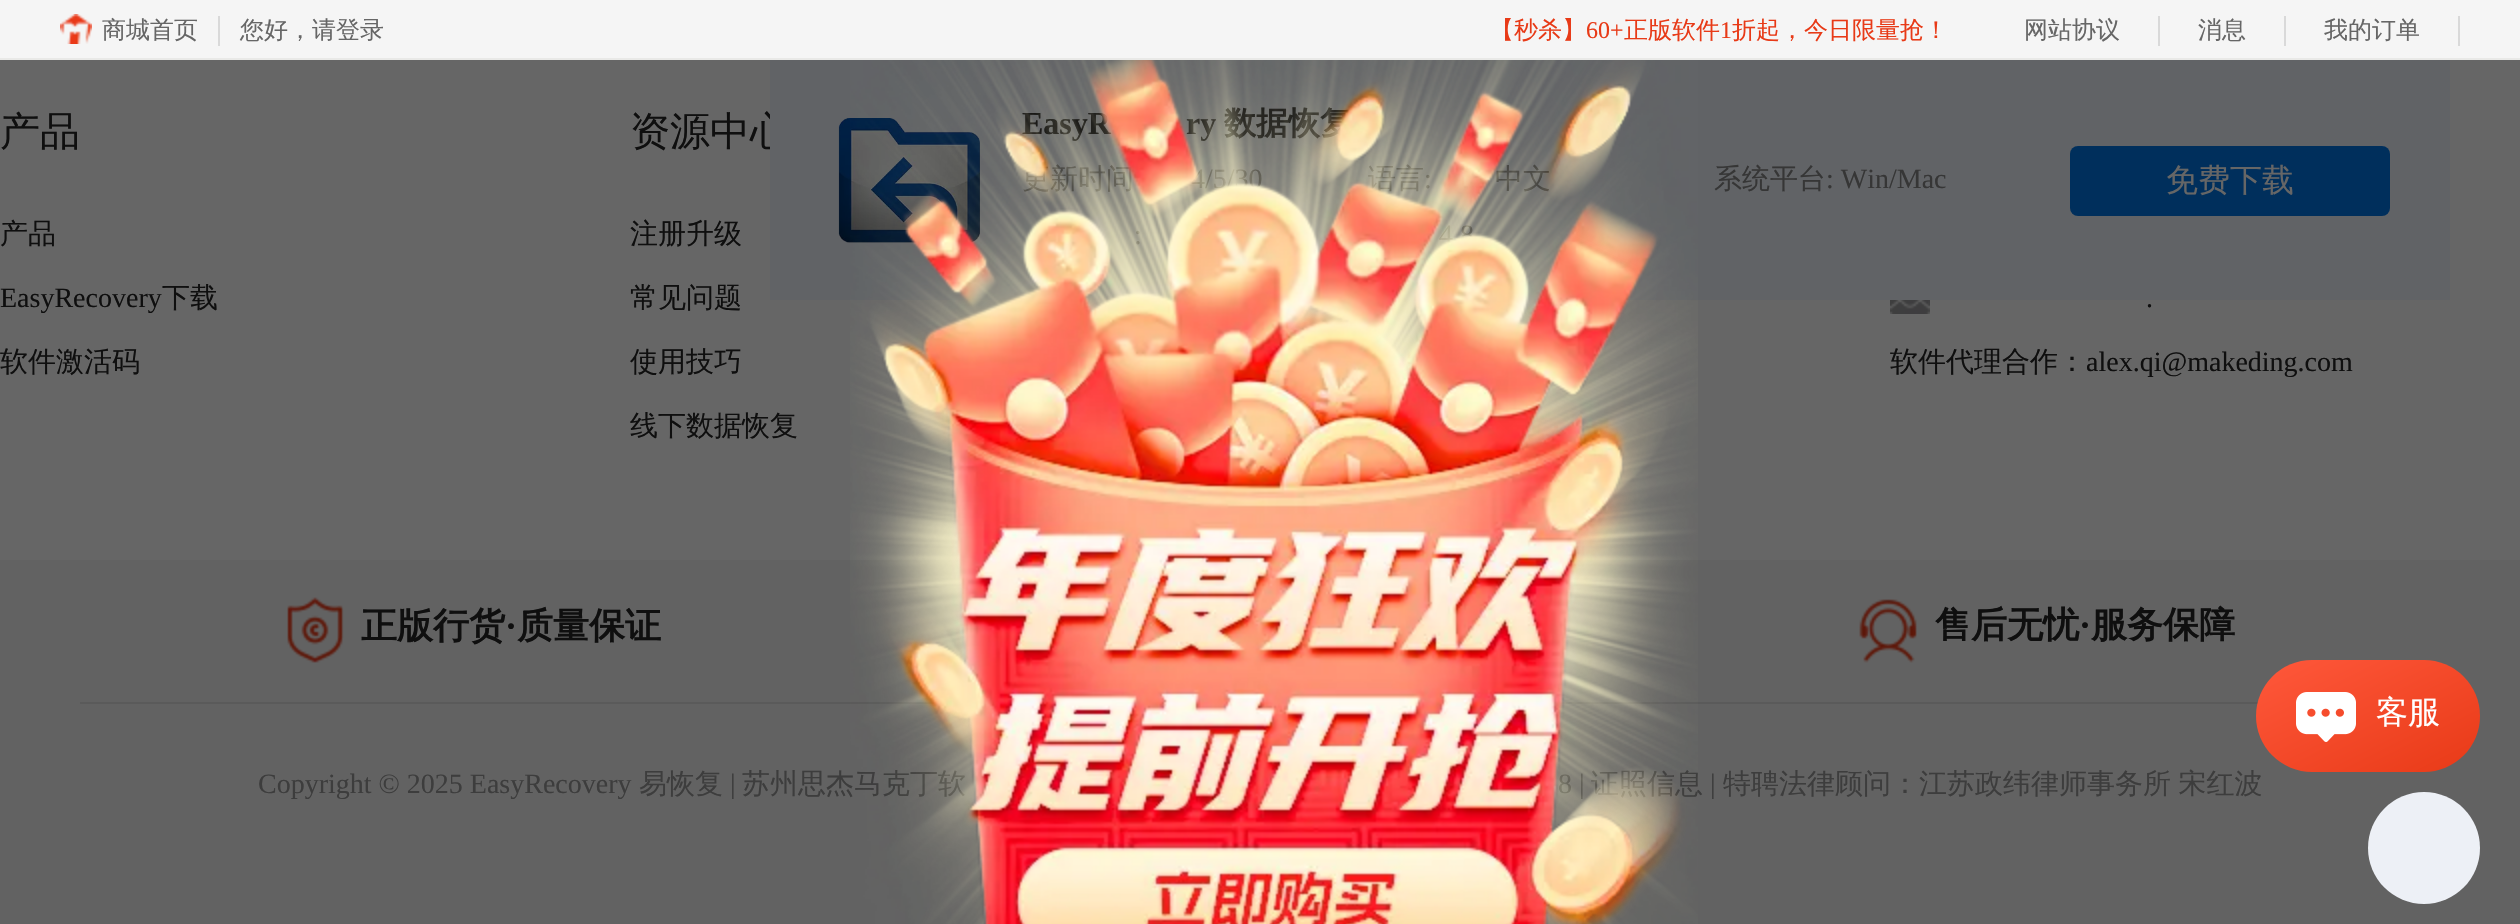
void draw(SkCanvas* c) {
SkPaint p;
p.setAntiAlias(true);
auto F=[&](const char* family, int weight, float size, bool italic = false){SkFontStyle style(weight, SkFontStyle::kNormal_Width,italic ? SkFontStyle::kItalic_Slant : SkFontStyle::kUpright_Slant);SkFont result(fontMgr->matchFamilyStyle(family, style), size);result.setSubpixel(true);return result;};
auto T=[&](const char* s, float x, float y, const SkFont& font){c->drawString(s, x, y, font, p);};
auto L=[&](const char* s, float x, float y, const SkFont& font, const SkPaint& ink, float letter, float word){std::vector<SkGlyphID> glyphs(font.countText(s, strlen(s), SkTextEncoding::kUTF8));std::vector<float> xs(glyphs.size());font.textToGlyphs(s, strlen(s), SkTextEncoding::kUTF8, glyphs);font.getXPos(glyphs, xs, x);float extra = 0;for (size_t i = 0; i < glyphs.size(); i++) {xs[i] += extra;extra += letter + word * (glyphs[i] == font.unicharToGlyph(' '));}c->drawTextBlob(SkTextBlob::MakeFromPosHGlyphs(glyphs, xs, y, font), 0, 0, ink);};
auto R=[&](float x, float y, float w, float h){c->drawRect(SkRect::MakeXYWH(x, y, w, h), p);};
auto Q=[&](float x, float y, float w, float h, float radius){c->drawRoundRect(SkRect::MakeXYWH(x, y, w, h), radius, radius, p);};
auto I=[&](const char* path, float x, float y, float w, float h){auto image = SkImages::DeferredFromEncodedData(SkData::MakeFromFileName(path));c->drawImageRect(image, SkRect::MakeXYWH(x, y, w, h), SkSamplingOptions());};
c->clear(0xff666666);
p.setColor(0xfff5f5f5);
R(0,0,2520,58);
p.setColor(0xffe9e9e7);
R(0,58,2520,2);
I("1.png",60,14,32,30);
auto f1 = F("WenQuanYi Zen Hei",500,24);
p.setColor(0xff666666);
T("商城首页",102,38,f1);
p.setColor(0xffd9d9d9);
R(218,16,2,30);
p.setColor(0xff666666);
T("您好，请登录",240,38,f1);
p.setColor(0xffe83a17);
T("【秒杀】",1490,38,f1);
auto f2 = F("Liberation Serif",400,24);
T("60+",1586,38,f2);
T("正版软件",1624,38,f1);
T("1",1720,38,f2);
T("折起，今日限量抢！",1732,38,f1);
p.setColor(0xff666666);
T("网站协议",2024,38,f1);
p.setColor(0xffd9d9d9);
R(2158,16,2,30);
p.setColor(0xff666666);
T("消息",2198,38,f1);
p.setColor(0xffd9d9d9);
R(2284,16,2,30);
p.setColor(0xff666666);
T("我的订单",2324,38,f1);
p.setColor(0xffd9d9d9);
R(2458,16,2,30);
auto f3 = F("WenQuanYi Zen Hei",500,40);
p.setColor(0xff0f0f0f);
T("资源中心",630,145,f3);
p.setColor(0xff616366);
R(770,60,1680,240);
I("3.png",838,118,142,125);
auto f4 = F("Liberation Serif",700,32);
p.setColor(0xff0f0f0f);
T("EasyR",1022,134,f4);
T("ry",1186,134,f4);
auto f5 = F("WenQuanYi Zen Hei",700,32);
T("数据恢复",1224,134,f5);
auto f6 = F("WenQuanYi Zen Hei",500,28);
p.setColor(0xff363636);
T("更新时间",1022,188,f6);
auto f7 = F("Liberation Serif",400,28);
T("4/5/30",1191,188,f7);
T("语言",1368,188,f6);
T(":",1424,188,f7);
T("中文",1495,188,f6);
T(":",1134,244,f7);
T("4.8",1439,244,f7);
p.setColor(0xff626262);
R(0,560,2520,364);
p.setColor(0xff5a5a5a);
R(80,702,2178,2);
p.setColor(0xff3d3d3d);
T("苏州思杰马克丁软",742,793,f6);
T("8 |",1558,793,f7);
T("证照信息",1591,793,f6);
I("2.png",850,60,848,864);
p.setColor(0xff363636);
T("系统平台",1714,188,f6);
T(": Win/Mac",1826,188,f7);
p.setColor(0xff002f5c);
Q(2070,146,320,70,8);
auto f8 = F("WenQuanYi Zen Hei",500,32);
p.setColor(0xff666666);
T("免费下载",2166,191,f8);
p.setColor(0xff0f0f0f);
T("产品",0,145,f3);
T("产品",0,243,f6);
T("EasyRecovery",0,307,f7);
T("下载",162,307,f6);
T("软件激活码",0,371,f6);
T("注册升级",630,243,f6);
T("常见问题",630,307,f6);
T("使用技巧",630,371,f6);
T("线下数据恢复",630,435,f6);
I("4.png",1890,300,40,14);
T(".",2146,307,f7);
T("软件代理合作：",1890,371,f6);
T("alex.qi@makeding.com",2086,371,f7);
I("5.png",287,597,57,66);
auto f9 = F("WenQuanYi Zen Hei",700,36);
T("正版行货",361,638,f9);
auto f10 = F("Liberation Serif",700,36);
T("·",505,638,f10);
T("质量保证",517,638,f9);
I("6.png",1859,599,58,64);
T("售后无忧",1935,637,f9);
T("·",2079,637,f10);
T("服务保障",2091,637,f9);
p.setColor(0xff3d3d3d);
T("Copyright © 2025 EasyRecovery",258,793,f7);
T("易恢复",639,793,f6);
T("|",730,793,f7);
T("|",1710,793,f7);
L("特聘法律顾问：江苏政纬律师事务所 宋红波",1723,793,f6,p,0,-1);
{
const SkColor colors[] = {0xffe83a17,0xffff583b};
const float stops[] = {0,1};
const SkPoint ends[] = {{2413,806}, {2323,626}};
p.setShader(SkGradientShader::MakeLinear(ends, colors, stops, 2, SkTileMode::kClamp));
p.setAlpha(255);
}
Q(2256,660,224,112,56);
I("7.png",2296,692,60,50);
p.setShader(nullptr);
p.setColor(0xffffffff);
T("客服",2376,723,f8);
p.setColor(0xffedf0f6);
c->drawCircle(2424,848,56,p);
}
